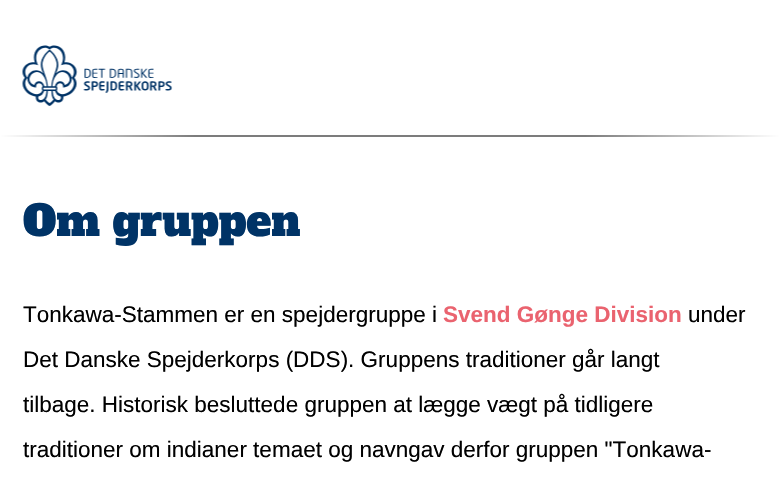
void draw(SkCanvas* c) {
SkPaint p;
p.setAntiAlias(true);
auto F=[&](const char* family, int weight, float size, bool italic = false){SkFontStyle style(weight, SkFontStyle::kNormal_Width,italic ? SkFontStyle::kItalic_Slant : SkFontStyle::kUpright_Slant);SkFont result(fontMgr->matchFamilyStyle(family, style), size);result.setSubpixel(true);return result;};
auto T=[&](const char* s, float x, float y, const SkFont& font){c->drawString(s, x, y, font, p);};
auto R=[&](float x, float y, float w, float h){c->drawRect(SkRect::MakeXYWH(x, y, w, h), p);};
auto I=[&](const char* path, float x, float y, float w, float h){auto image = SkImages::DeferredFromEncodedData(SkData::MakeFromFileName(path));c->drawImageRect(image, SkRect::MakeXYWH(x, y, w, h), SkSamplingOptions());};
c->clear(0xffffffff);
I("1.png",22,45,151,61);
{
const SkColor colors[] = {0xffffffff,0xff7c7c7c,0xff7c7c7c,0xffffffff};
const float stops[] = {0,.25,.75,1};
const SkPoint ends[] = {{780,136}, {0,136}};
p.setShader(SkGradientShader::MakeLinear(ends, colors, stops, 4, SkTileMode::kClamp));
p.setAlpha(255);
}
R(0,135,780,2);
auto f1 = F("Alfa Slab One",400,42);
p.setShader(nullptr);
p.setColor(0xff003366);
T("Om gruppen",23,236,f1);
auto f2 = F("Liberation Sans",400,22.5);
p.setColor(0xff000000);
T("Tonkawa-Stammen er en spejdergruppe i",23,322,f2);
auto f3 = F("Liberation Sans",700,22.5);
p.setColor(0xffea636f);
T("Svend Gønge Division",443,322,f3);
p.setColor(0xff000000);
T("under",688,322,f2);
T("Det Danske Spejderkorps (DDS). Gruppens traditioner går langt",23,367,f2);
T("tilbage. Historisk besluttede gruppen at lægge vægt på tidligere",23,412,f2);
T("traditioner om indianer temaet og navngav derfor gruppen \"Tonkawa-",23,457,f2);
}
